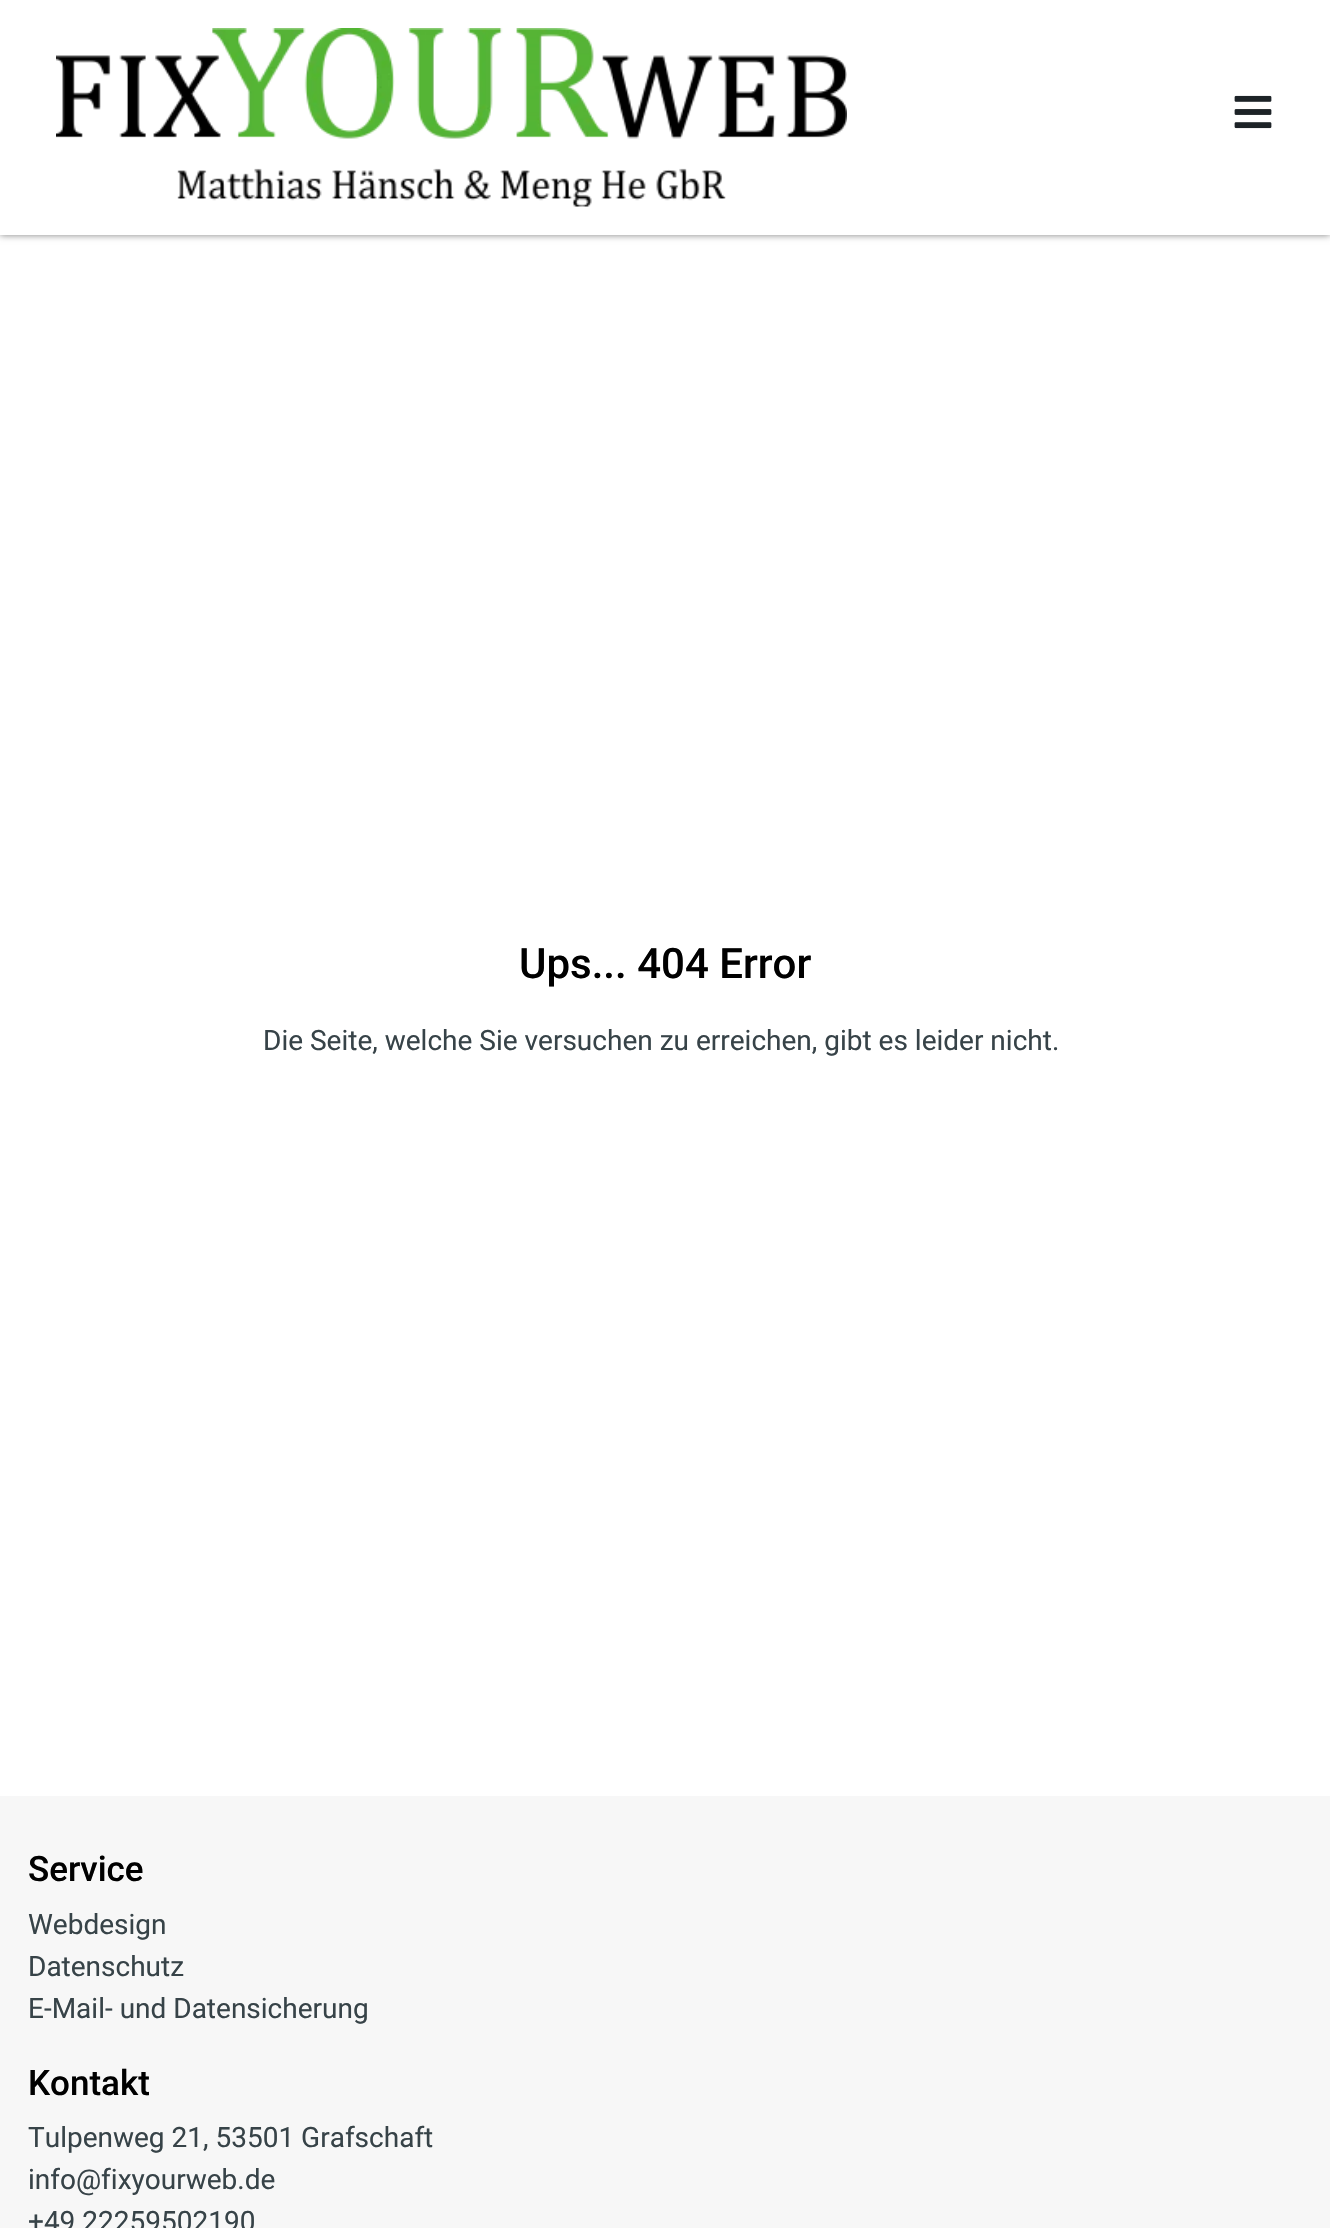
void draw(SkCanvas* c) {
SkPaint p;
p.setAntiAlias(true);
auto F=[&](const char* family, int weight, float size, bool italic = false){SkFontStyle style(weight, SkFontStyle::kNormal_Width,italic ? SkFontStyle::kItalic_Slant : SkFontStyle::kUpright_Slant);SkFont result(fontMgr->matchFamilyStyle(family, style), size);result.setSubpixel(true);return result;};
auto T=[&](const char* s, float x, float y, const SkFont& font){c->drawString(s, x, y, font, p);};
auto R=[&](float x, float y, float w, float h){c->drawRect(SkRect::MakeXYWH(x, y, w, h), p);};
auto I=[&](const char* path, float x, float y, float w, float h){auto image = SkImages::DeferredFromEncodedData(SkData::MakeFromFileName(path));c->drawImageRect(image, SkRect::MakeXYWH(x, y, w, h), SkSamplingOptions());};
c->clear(0xffffffff);
p.setColor(0x80000000);
p.setMaskFilter(SkMaskFilter::MakeBlur(kNormal_SkBlurStyle, 3.5));
c->drawRect(SkRect::MakeXYWH(0,0,1330,235),p);
p.setMaskFilter(nullptr);
p.setColor(0xffffffff);
R(0,0,1330,235);
I("1.png",56,28,791,179);
I("2.png",1234,95,38,34);
auto f1 = F("Roboto",500,42);
p.setColor(0xff000000);
T("Ups... 404 Error",519,978,f1);
auto f2 = F("Roboto",400,28);
p.setColor(0xff374348);
T("Die Seite, welche Sie versuchen zu erreichen, gibt es leider nicht.",263,1050,f2);
p.setColor(0xfff7f7f7);
R(0,1796,1330,432);
auto f3 = F("Roboto",500,35);
p.setColor(0xff000000);
T("Service",28,1881,f3);
p.setColor(0xff374348);
T("Webdesign",28,1934,f2);
T("Datenschutz",28,1976,f2);
T("E-Mail- und Datensicherung",28,2018,f2);
p.setColor(0xff000000);
T("Kontakt",28,2095,f3);
p.setColor(0xff374348);
T("Tulpenweg 21, 53501 Grafschaft",28,2147,f2);
T("info@fixyourweb.de",28,2189,f2);
T("+49 22259502190",28,2231,f2);
}
